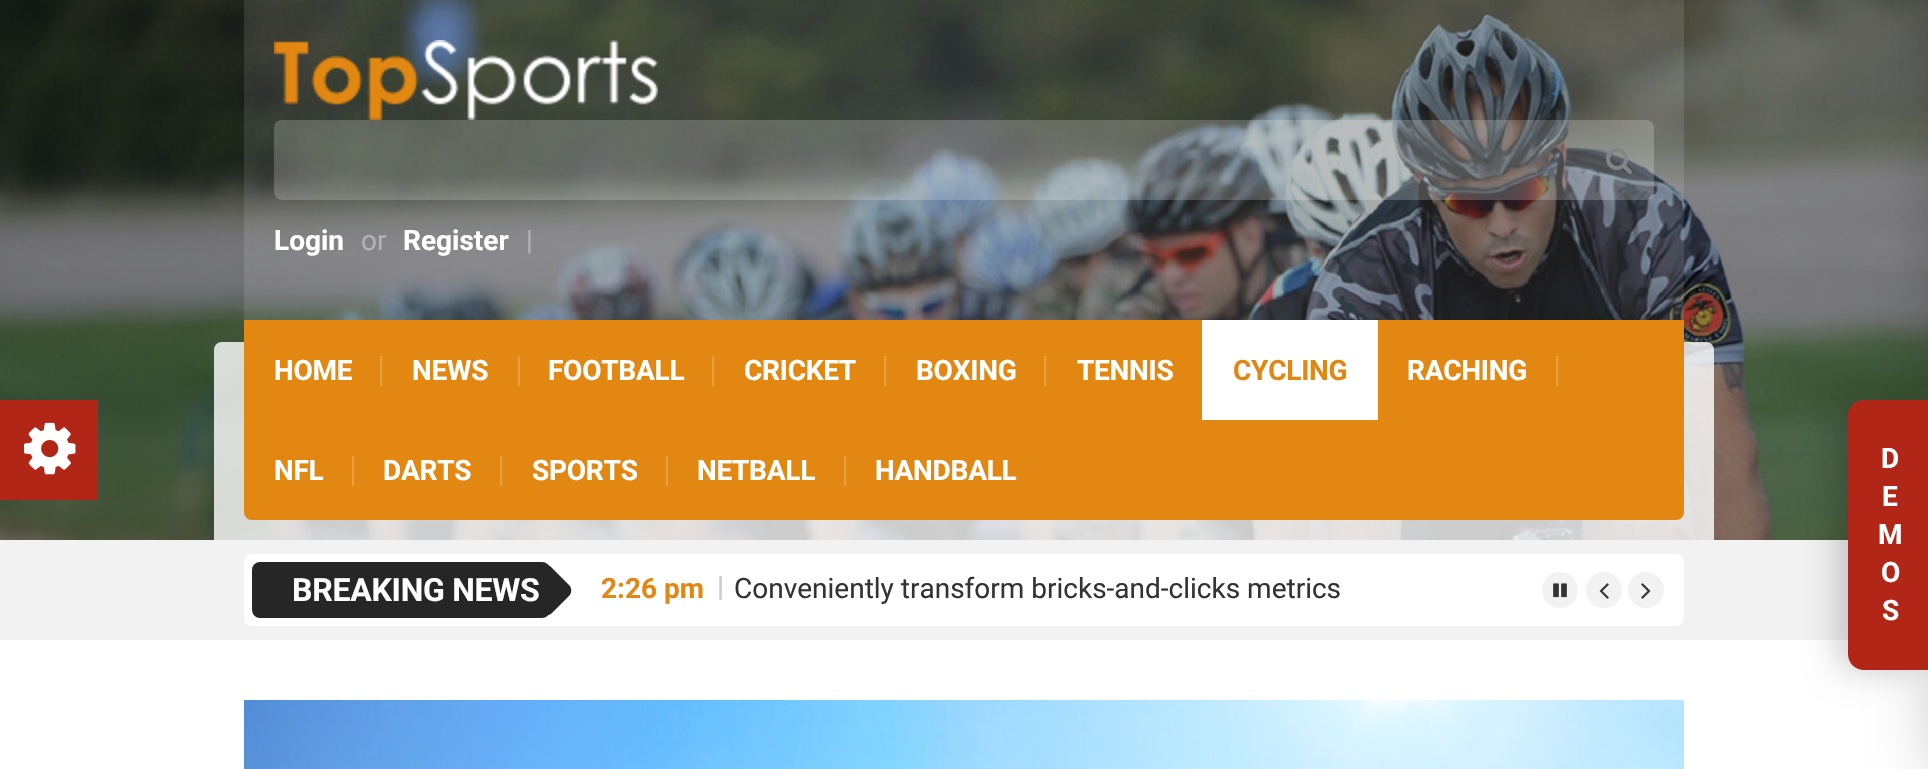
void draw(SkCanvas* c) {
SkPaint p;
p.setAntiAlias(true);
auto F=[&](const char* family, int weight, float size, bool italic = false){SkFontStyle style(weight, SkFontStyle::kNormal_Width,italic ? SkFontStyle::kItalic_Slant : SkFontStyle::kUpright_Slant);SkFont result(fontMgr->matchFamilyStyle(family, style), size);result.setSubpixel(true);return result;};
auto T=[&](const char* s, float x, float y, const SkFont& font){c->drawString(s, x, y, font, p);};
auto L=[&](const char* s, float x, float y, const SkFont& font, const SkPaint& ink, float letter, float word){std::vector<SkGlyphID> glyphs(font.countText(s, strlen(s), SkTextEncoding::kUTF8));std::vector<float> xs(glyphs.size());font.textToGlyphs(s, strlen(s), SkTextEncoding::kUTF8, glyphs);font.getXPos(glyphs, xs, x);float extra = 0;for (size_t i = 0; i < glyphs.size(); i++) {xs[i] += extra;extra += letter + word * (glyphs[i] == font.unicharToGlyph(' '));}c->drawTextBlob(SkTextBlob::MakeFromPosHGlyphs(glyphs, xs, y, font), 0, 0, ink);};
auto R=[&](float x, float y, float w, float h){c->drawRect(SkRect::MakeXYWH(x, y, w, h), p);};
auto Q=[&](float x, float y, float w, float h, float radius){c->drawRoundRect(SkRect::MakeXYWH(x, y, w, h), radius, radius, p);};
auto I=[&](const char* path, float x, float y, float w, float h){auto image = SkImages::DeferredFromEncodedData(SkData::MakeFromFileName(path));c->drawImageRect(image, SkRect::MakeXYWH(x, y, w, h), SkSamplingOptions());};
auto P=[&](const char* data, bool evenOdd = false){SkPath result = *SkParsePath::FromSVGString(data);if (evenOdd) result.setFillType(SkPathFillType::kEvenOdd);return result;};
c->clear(0xffffffff);
I("4.png",0,0,1928,540);
p.setColor(0xffb22617);
R(0,400,98,100);
I("1.png",24,422,52,53);
p.setColor(0x1affffff);
R(244,0,1440,320);
I("2.png",274,40,384,80);
p.setColor(0x33ffffff);
Q(274,120,1380,80,8);
I("3.png",1606,148,26,26);
auto f1 = F("Roboto",700,28);
p.setColor(0xffffffff);
T("Login",274,250,f1);
auto f2 = F("Roboto",400,28);
p.setColor(0xffb3b3b3);
T("or",361,250,f2);
p.setColor(0xffffffff);
T("Register",403,250,f1);
p.setColor(0xffb3b3b3);
T("|",526,250,f2);
p.setColor(0xccffffff);
c->drawPath(P("M222 342h1484c4.5 0 8 3.5 8 8v190h-1500v-190c0-4.5 3.5-8 8-8z"),p);
p.setColor(0xffe28712);
c->drawPath(P("M244 320h1440v192c0 4.5-3.5 8-8 8h-1424c-4.5 0-8-3.5-8-8z"),p);
p.setColor(0xffffffff);
L("HOME",274,380,f1,p,-.25,0);
p.setColor(0xffe89f41);
R(380,356,2,30);
p.setColor(0xffffffff);
L("NEWS",412,380,f1,p,-.25,0);
p.setColor(0xffe89f41);
R(518,356,2,30);
p.setColor(0xffffffff);
L("FOOTBALL",548,380,f1,p,-.25,0);
p.setColor(0xffe89f41);
R(712,356,2,30);
p.setColor(0xffffffff);
L("CRICKET",744,380,f1,p,-.25,0);
p.setColor(0xffe89f41);
R(884,356,2,30);
p.setColor(0xffffffff);
L("BOXING",916,380,f1,p,-.25,0);
p.setColor(0xffe89f41);
R(1044,356,2,30);
p.setColor(0xffffffff);
L("TENNIS",1077,380,f1,p,-.25,0);
R(1202,320,176,100);
p.setColor(0xffe28712);
L("CYCLING",1233,380,f1,p,-.25,0);
p.setColor(0xffffffff);
L("RACHING",1407,380,f1,p,-.25,0);
p.setColor(0xffe89f41);
R(1556,356,2,30);
p.setColor(0xffffffff);
L("NFL",274,480,f1,p,-.25,0);
p.setColor(0xffe89f41);
R(352,456,2,30);
p.setColor(0xffffffff);
L("DARTS",383,480,f1,p,-.25,0);
p.setColor(0xffe89f41);
R(500,456,2,30);
p.setColor(0xffffffff);
L("SPORTS",532,480,f1,p,-.25,0);
p.setColor(0xffe89f41);
R(666,456,2,30);
p.setColor(0xffffffff);
L("NETBALL",697,480,f1,p,-.25,0);
p.setColor(0xffe89f41);
R(844,456,2,30);
p.setColor(0xffffffff);
L("HANDBALL",875,480,f1,p,-.25,0);
p.setColor(0xfff2f2f2);
R(0,540,1848,100);
p.setColor(0xffffffff);
Q(244,554,1440,72,8);
p.setColor(0xff262626);
Q(252,562,298,56,8);
c->drawPath(P("M524 585l17-17c3-4 8-4 11 0l17 17c3 3 3 8 0 11l-17 17c-3 3-8 3-11 0l-17-17c-3-3-3-8 0-11z"),p);
auto f3 = F("Roboto",700,32);
p.setColor(0xffffffff);
L("BREAKING NEWS",292,601,f3,p,-.25,0);
p.setColor(0xffe28712);
T("2:26 pm",601,598,f1);
p.setColor(0xffcccccc);
T("|",717,596,f1);
p.setColor(0xff333333);
T("Conveniently transform bricks-and-clicks metrics",734,598,f2);
p.setColor(0xfff2f2f2);
c->drawCircle(1560,590,18,p);
I("5.png",1553,583,14,15);
c->drawCircle(1604,590,18,p);
I("6.png",1599,583,10,16);
c->drawCircle(1646,590,18,p);
I("7.png",1641,583,10,16);
I("8.png",244,700,1440,69);
p.setColor(0x33000000);
p.setMaskFilter(SkMaskFilter::MakeBlur(kNormal_SkBlurStyle, 30));
c->drawRect(SkRect::MakeXYWH(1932,0,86,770),p);
p.setMaskFilter(nullptr);
p.setMaskFilter(SkMaskFilter::MakeBlur(kNormal_SkBlurStyle, 17));
c->drawRoundRect(SkRect::MakeXYWH(1838,400,84,270),16,16,p);
p.setMaskFilter(nullptr);
p.setColor(0xffb22617);
c->drawPath(P("M1864 400h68v270h-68c-9 0-16-7-16-16v-238c0-9 7-16 16-16z"),p);
p.setColor(0xffffffff);
T("D",1881,468,f1);
T("E",1882,506,f1);
T("M",1878,544,f1);
T("O",1881,582,f1);
T("S",1882,620,f1);
}
